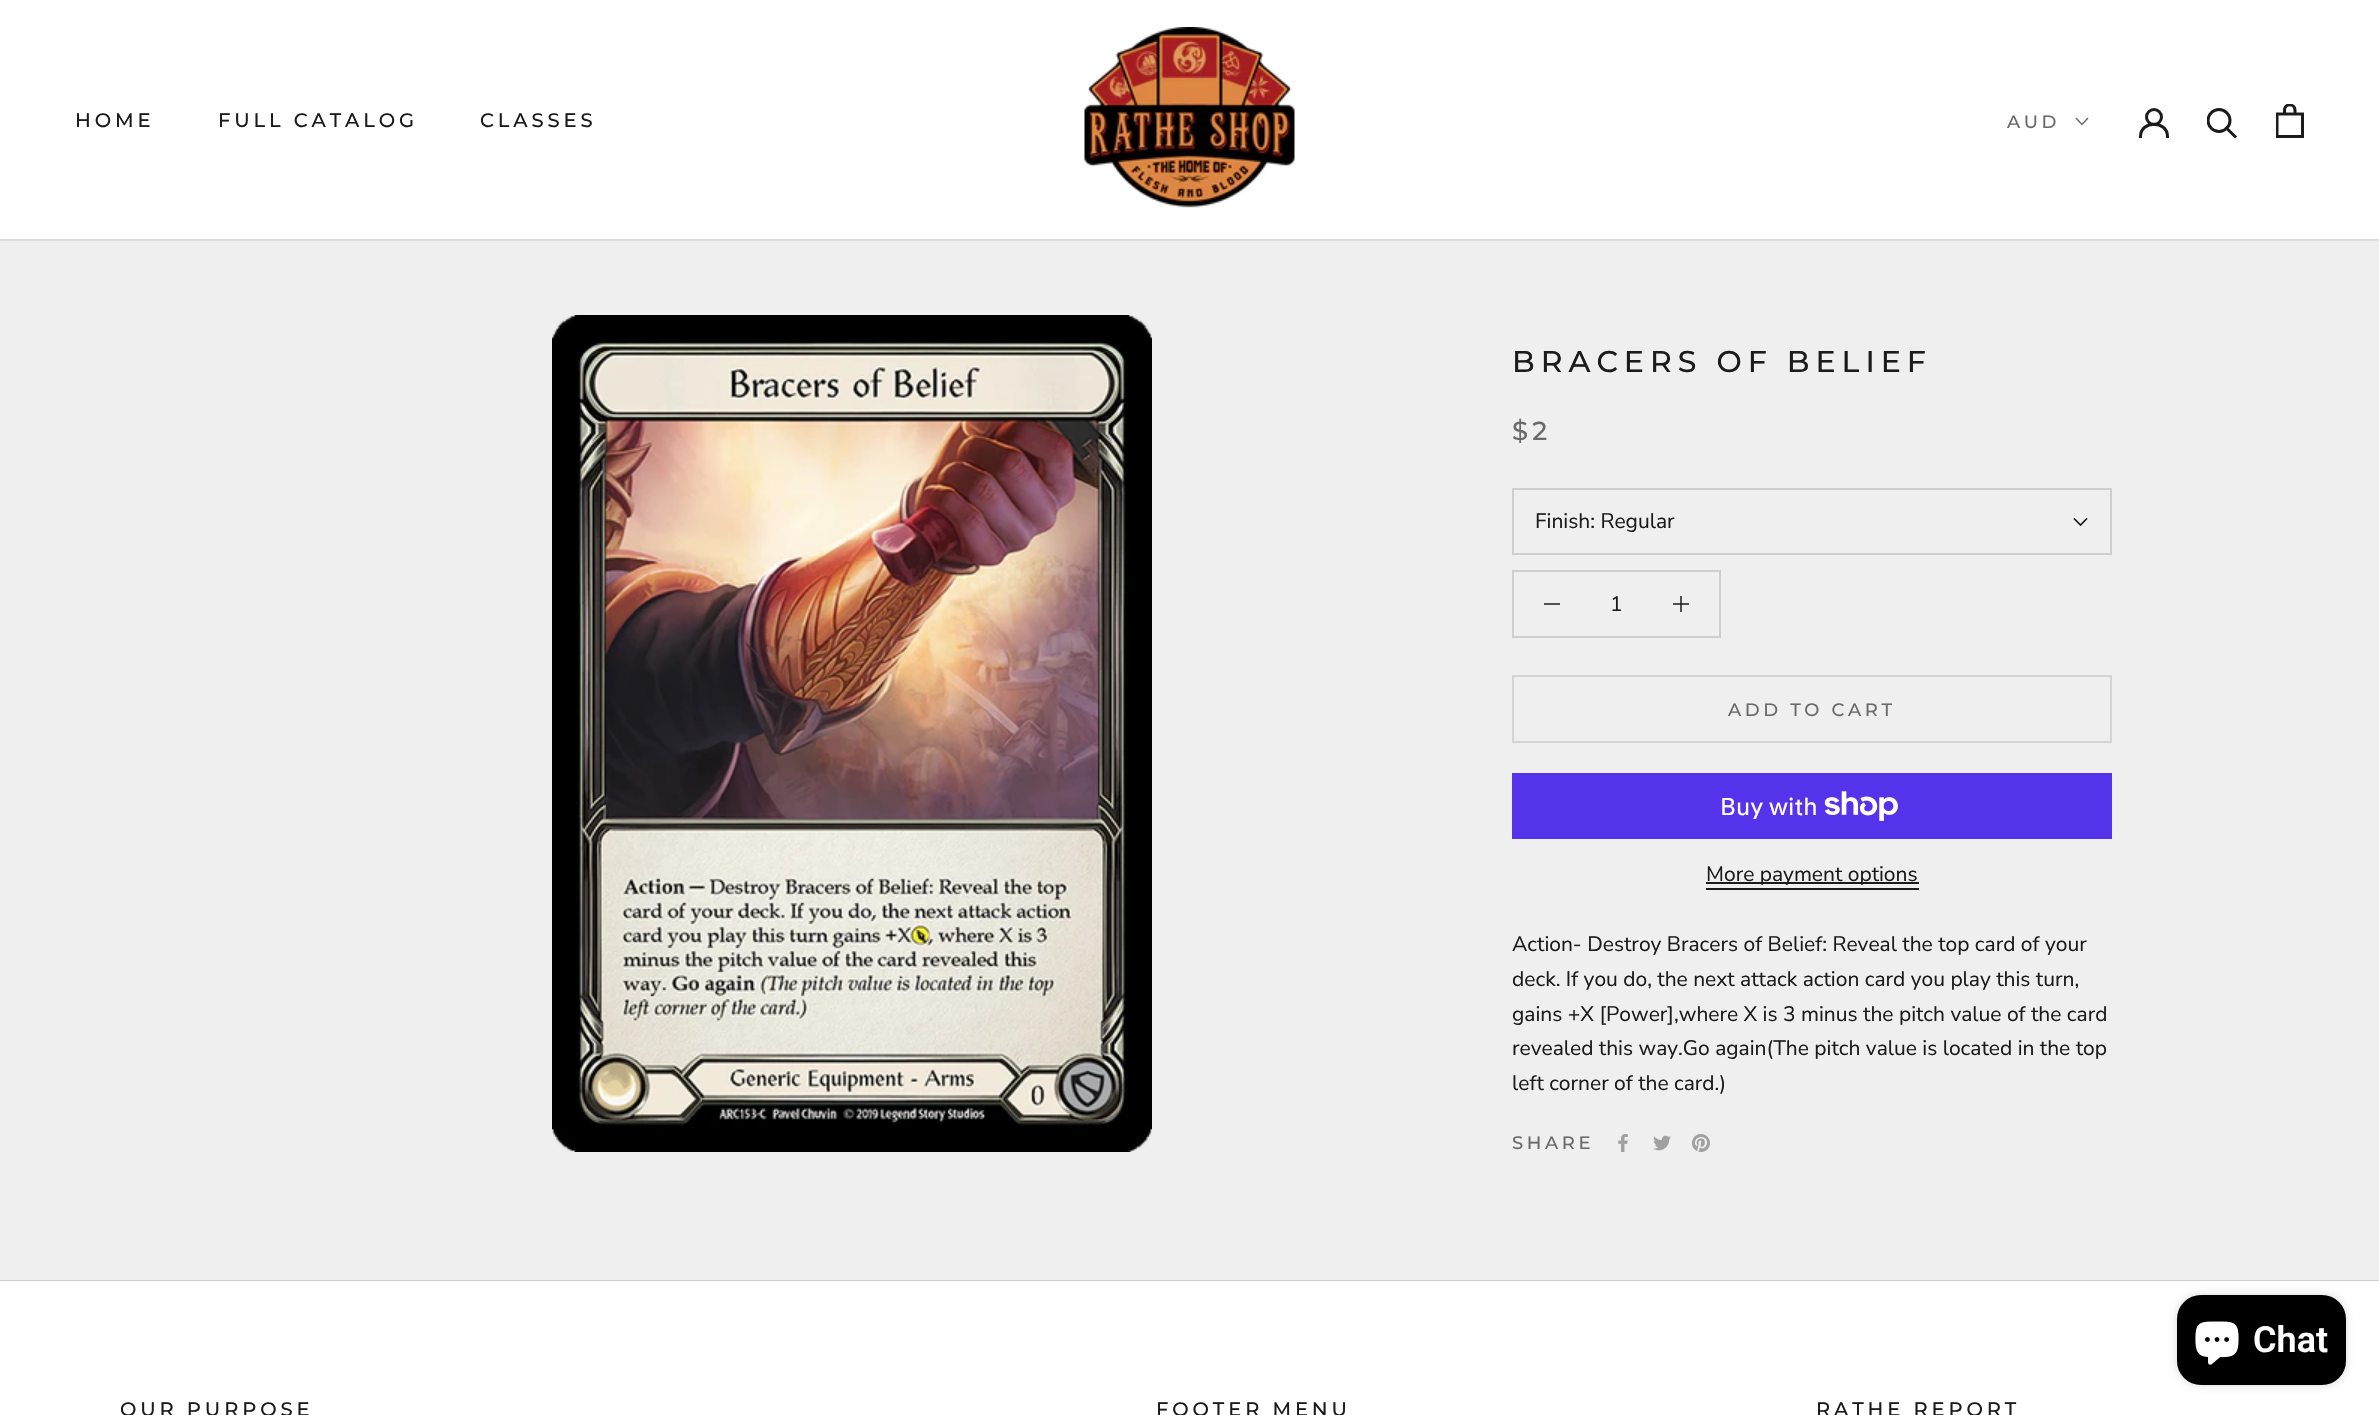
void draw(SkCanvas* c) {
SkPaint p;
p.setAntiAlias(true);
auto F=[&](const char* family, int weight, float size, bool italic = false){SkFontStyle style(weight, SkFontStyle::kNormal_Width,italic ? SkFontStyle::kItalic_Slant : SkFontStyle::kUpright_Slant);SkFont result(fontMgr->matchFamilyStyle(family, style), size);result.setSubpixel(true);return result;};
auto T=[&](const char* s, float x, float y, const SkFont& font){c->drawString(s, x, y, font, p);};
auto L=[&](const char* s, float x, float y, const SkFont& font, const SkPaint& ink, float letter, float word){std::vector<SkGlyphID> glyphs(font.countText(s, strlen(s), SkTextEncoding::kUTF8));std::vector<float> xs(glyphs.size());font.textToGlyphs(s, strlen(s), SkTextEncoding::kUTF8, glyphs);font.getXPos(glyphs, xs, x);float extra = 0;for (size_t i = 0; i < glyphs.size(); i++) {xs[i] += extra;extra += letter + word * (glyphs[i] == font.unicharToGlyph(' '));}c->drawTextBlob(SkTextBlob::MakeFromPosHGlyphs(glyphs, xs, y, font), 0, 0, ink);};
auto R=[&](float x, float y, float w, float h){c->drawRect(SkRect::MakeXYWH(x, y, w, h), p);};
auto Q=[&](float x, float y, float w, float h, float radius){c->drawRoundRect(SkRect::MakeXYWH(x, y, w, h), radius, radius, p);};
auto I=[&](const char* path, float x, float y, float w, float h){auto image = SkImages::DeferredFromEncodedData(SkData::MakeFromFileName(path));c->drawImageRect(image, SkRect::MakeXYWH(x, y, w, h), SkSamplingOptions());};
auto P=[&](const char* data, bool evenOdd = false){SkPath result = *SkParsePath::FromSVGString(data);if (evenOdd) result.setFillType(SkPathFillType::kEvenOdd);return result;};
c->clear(0xffefefef);
p.setColor(0xff515050);
R(1673,603,16,2);
p.setColor(0xffffffff);
R(0,0,2379,239);
p.setColor(0xffdddddd);
R(0,239,2379,2);
auto f1 = F("Montserrat",500,19.5);
p.setColor(0xff1c1b1b);
L("HOME",75,127,f1,p,3.9,0);
L("FULL CATALOG",218,127,f1,p,3.9,0);
L("CLASSES",480,127,f1,p,3.9,0);
I("1.png",1084,27,211,181);
auto f2 = F("Montserrat",500,18);
p.setColor(0xff6a6a6a);
L("AUD",2007,128,f2,p,3.6,0);
p.setStroke(true);
p.setStrokeWidth(1.5);
p.setStrokeCap(SkPaint::kSquare_Cap);
c->drawPath(P("M2087.5 118.5l-5.5 6l-5.5-6"),p);
p.setStrokeWidth(3);
p.setColor(0xff1c1b1b);
c->drawPath(P("M2140.5 136.5c0-16.5 27-16.5 27 0"),p);
p.setStrokeCap(SkPaint::kButt_Cap);
c->drawCircle(2154,117,7.5,p);
p.setStrokeCap(SkPaint::kSquare_Cap);
c->drawPath(P("M2235 136.5l-8.5-8.5"),p);
c->save();
c->clipRect(SkRect::MakeXYWH(2207,108,31,32));
p.setStrokeCap(SkPaint::kButt_Cap);
c->drawCircle(2219,120.5,11,p);
c->restore();
I("2.png",2276,104,28,34);
I("3.png",552,315,600,837);
auto f3 = F("Montserrat",500,30);
p.setStroke(false);
L("BRACERS OF BELIEF",1512,372,f3,p,6,0);
auto f4 = F("Montserrat",500,26);
p.setColor(0xff6a6a6a);
L("$2",1512,440,f4,p,4,0);
p.setStroke(true);
p.setStrokeWidth(2);
p.setColor(0xffcfcfcf);
c->drawRect(SkRect::MakeXYWH(1513,489,598,65),p);
auto f5 = F("Nunito Sans",400,21);
p.setStroke(false);
p.setColor(0xff1c1b1b);
T("Finish: Regular",1535,528,f5);
p.setStroke(true);
p.setStrokeWidth(1.6);
p.setStrokeCap(SkPaint::kSquare_Cap);
c->drawPath(P("M2086.5 519l-6 6l-6-6"),p);
p.setStrokeWidth(2);
p.setStrokeCap(SkPaint::kButt_Cap);
p.setColor(0xffcfcfcf);
c->drawRect(SkRect::MakeXYWH(1513,571,207,66),p);
p.setStroke(false);
p.setColor(0xff515050);
R(1544,603,16,2);
p.setColor(0xff1c1b1b);
T("1",1610,611,f5);
p.setColor(0xff515050);
R(1680,596,2,16);
p.setColor(0xff292828);
R(1680,603,2,2);
p.setStroke(true);
p.setColor(0xffd4d4d4);
c->drawRect(SkRect::MakeXYWH(1513,676,598,66),p);
p.setStroke(false);
p.setColor(0xff6a6a6a);
L("ADD TO CART",1728,716,f2,p,3.6,0);
p.setColor(0xff5433eb);
R(1512,773,600,66);
auto f6 = F("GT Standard",400,24);
p.setColor(0xffffffff);
T("Buy with",1720,815,f6);
I("4.png",1824,791,74,30);
p.setColor(0xff1c1b1b);
R(1706,882,213,2);
T("More payment options",1706,881,f5);
R(1706,888,213,2);
T("Action- Destroy Bracers of Belief: Reveal the top card of your",1512,951,f5);
T("deck. If you do, the next attack action card you play this turn,",1512,986,f5);
T("gains +X [Power],where X is 3 minus the pitch value of the card",1512,1021,f5);
T("revealed this way.Go again(The pitch value is located in the top",1512,1055,f5);
T("left corner of the card.)",1512,1090,f5);
p.setColor(0xff6a6a6a);
L("SHARE",1512,1149,f2,p,3.6,0);
I("5.png",1618,1134,10,18);
I("6.png",1653,1135,18,16);
I("7.png",1692,1134,18,18);
p.setColor(0xffcfcfcf);
R(0,1280,2379,1);
p.setColor(0xffffffff);
R(0,1281,2379,134);
p.setColor(0xff1c1b1b);
L("OUR PURPOSE",120,1416,f1,p,3.9,0);
L("FOOTER MENU",1156,1416,f1,p,3.9,0);
L("RATHE REPORT",1816,1416,f1,p,3.9,0);
p.setColor(0x26000000);
p.setMaskFilter(SkMaskFilter::MakeBlur(kNormal_SkBlurStyle, 4));
c->drawRoundRect(SkRect::MakeXYWH(2177,1295,169,90),24,24,p);
p.setMaskFilter(nullptr);
p.setColor(0xff000000);
Q(2177,1295,169,90,24);
I("8.png",2195,1321,44,44);
auto f7 = F("Roboto",600,36);
p.setColor(0xffffffff);
T("Chat",2253,1352,f7);
}
